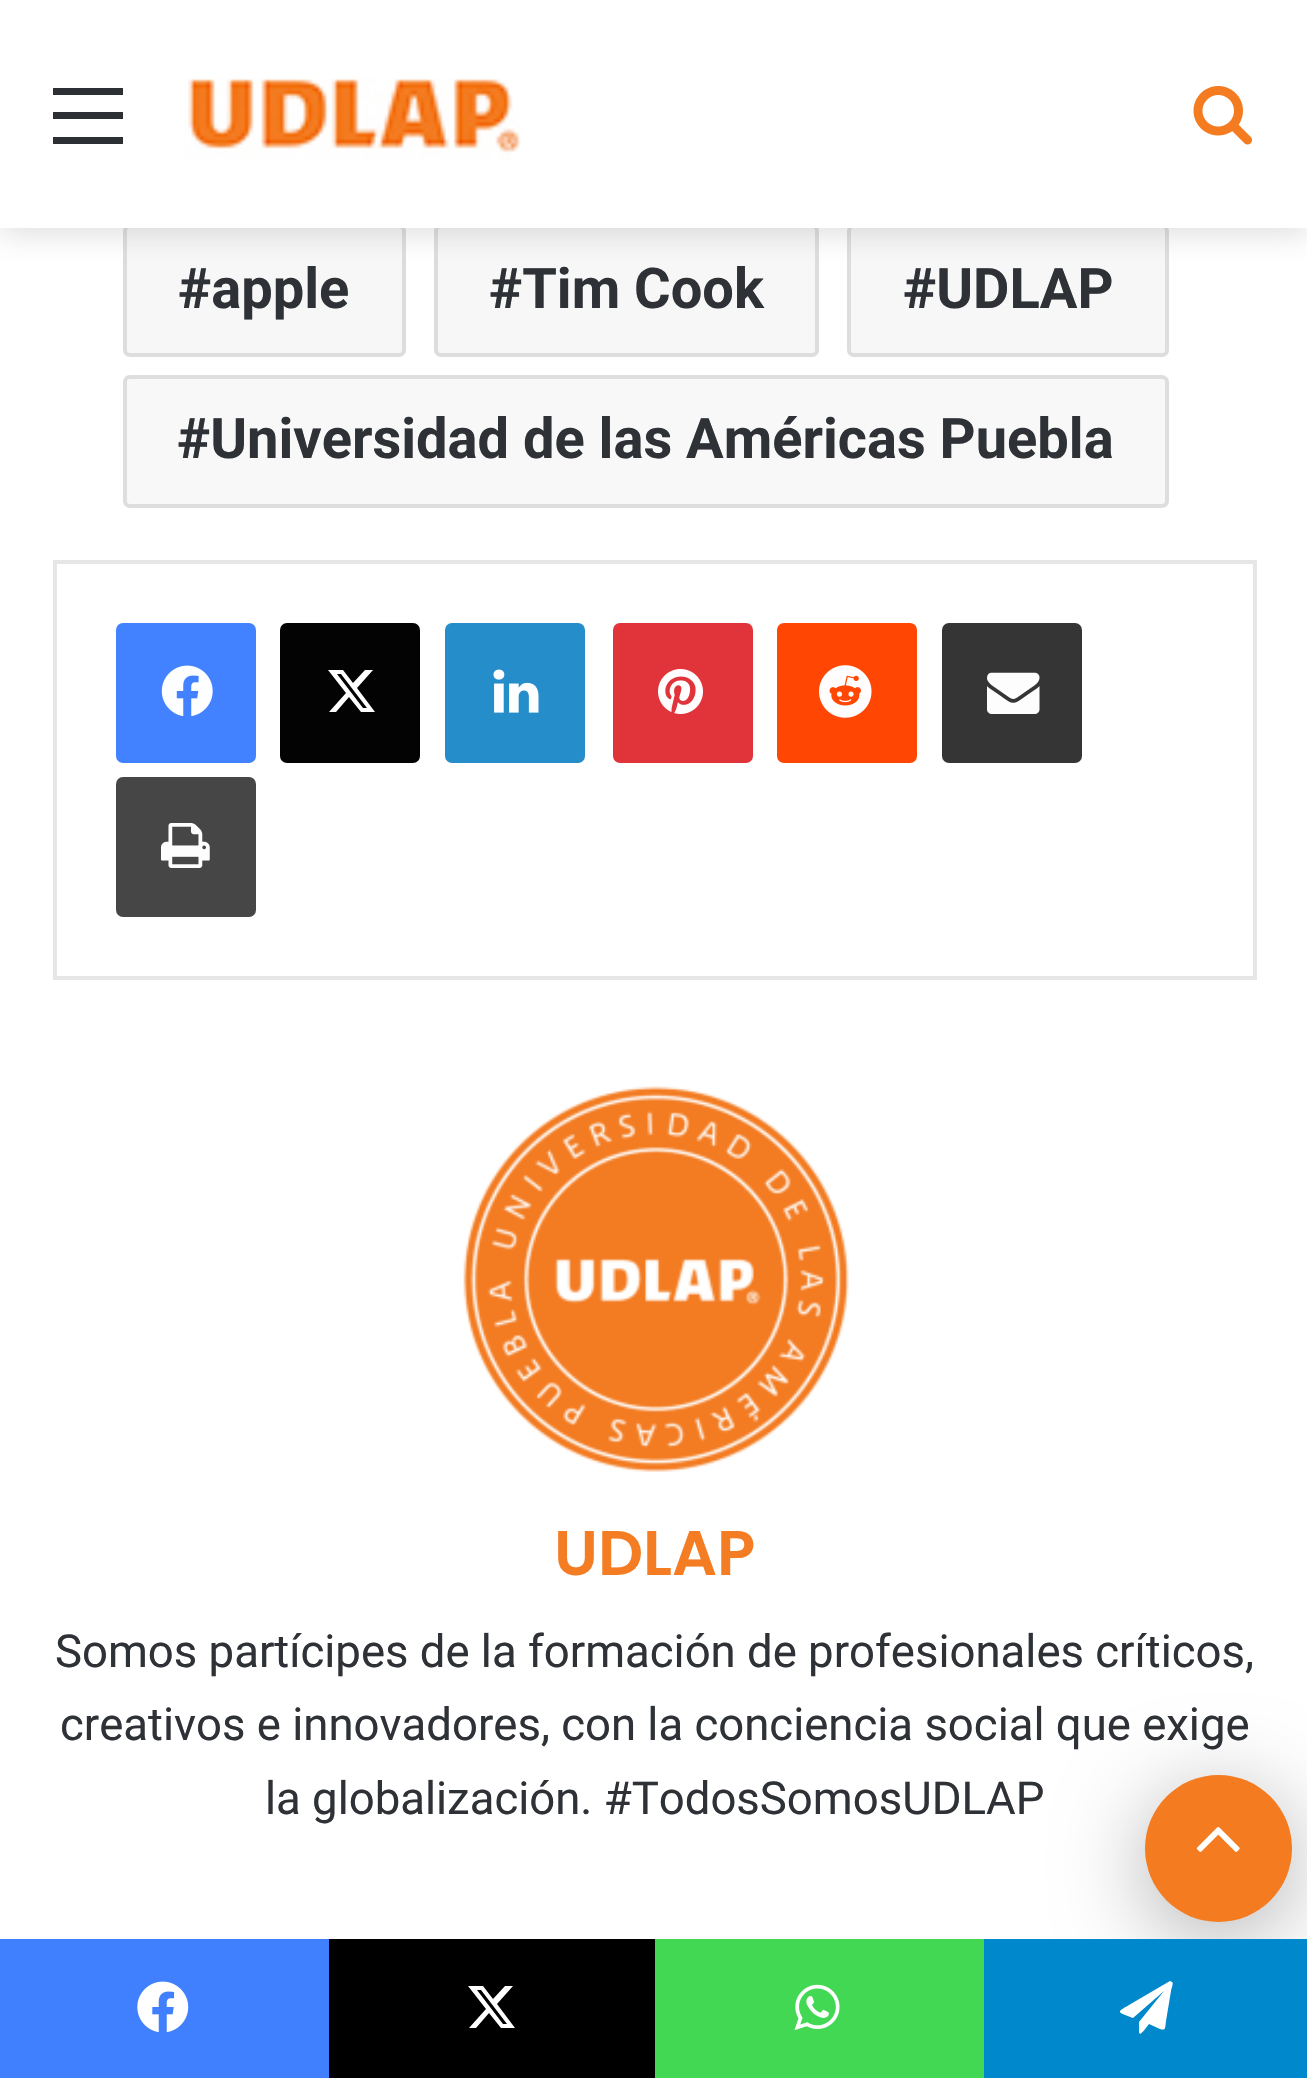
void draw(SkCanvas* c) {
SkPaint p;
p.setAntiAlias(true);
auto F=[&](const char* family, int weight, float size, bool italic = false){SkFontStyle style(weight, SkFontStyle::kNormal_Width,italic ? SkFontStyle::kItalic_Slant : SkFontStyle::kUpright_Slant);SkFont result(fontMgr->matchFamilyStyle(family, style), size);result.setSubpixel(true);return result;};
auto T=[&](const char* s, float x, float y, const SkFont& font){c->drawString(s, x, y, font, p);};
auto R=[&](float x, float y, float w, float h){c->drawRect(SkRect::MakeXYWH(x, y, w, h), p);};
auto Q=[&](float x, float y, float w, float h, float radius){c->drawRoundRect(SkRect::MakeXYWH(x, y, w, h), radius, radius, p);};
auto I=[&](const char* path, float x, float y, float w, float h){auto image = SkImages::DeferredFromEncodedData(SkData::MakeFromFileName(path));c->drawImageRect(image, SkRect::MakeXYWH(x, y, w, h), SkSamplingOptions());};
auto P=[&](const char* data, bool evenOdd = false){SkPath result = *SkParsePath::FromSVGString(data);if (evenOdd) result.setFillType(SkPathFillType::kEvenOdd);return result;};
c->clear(0xffffffff);
p.setColor(0xfff7f7f7);
Q(123,224,283,133,7);
p.setStroke(true);
p.setStrokeWidth(4);
p.setColor(0x1a030303);
c->drawRoundRect(SkRect::MakeXYWH(125,226,279,129),5,5,p);
p.setStroke(false);
p.setColor(0xfff7f7f7);
Q(434,224,385,133,7);
p.setStroke(true);
p.setColor(0x1a030303);
c->drawRoundRect(SkRect::MakeXYWH(436,226,381,129),5,5,p);
p.setStroke(false);
p.setColor(0xfff7f7f7);
Q(847,224,322,133,7);
p.setStroke(true);
p.setColor(0x1a030303);
c->drawRoundRect(SkRect::MakeXYWH(849,226,318,129),5,5,p);
c->save();
c->clipPath(P("M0 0h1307v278h-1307zm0 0h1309v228h-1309z",true),true);
p.setStroke(false);
p.setColor(0x33636363);
p.setMaskFilter(SkMaskFilter::MakeBlur(kNormal_SkBlurStyle, 14));
c->drawRect(SkRect::MakeXYWH(0,7,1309,228),p);
p.setMaskFilter(nullptr);
c->restore();
p.setColor(0xf2ffffff);
R(0,224,1307,4);
p.setColor(0xff2c2f34);
R(53,112,70,7);
R(53,88,70,7);
R(53,137,70,7);
I("1.png",183,78,339,82);
I("2.png",1193,86,59,59);
auto f1 = F("Roboto",700,56);
p.setColor(0xff2e3136);
T("#apple",178,308,f1);
T("#Tim Cook",489,308,f1);
T("#UDLAP",903,308,f1);
p.setColor(0xfff8f8f8);
Q(123,375,1046,133,7);
p.setStroke(true);
p.setColor(0x1a030303);
c->drawRoundRect(SkRect::MakeXYWH(125,377,1042,129),5,5,p);
p.setStroke(false);
p.setColor(0xff2e3136);
T("#Universidad de las Américas Puebla",177,458,f1);
p.setStroke(true);
p.setColor(0xffe6e6e6);
c->drawRect(SkRect::MakeXYWH(55,562,1200,416),p);
p.setStroke(false);
p.setColor(0xff4281ff);
Q(116,623,140,140,7);
I("3.png",161,665,52,52);
p.setColor(0xff030303);
Q(280,623,140,140,7);
p.setColor(0xffffffff);
c->drawPath(P("M365 670h8l-16 18l18 24h-14l-12-15l-13 15h-7l17-19l-18-23h15l10 13zm-2 38h4l-26-34h-4z"),p);
p.setColor(0xff258dc9);
Q(445,623,140,140,7);
I("4.png",493,669,46,44);
p.setColor(0xffe1333a);
Q(613,623,140,140,7);
I("5.png",658,669,45,45);
p.setColor(0xffff4703);
Q(777,623,140,140,7);
I("6.png",819,665,53,53);
p.setColor(0xff353535);
Q(942,623,140,140,7);
I("7.png",987,672,53,42);
p.setColor(0xff464646);
Q(116,777,140,140,7);
I("8.png",161,823,49,45);
I("9.png",463,1086,386,386);
auto f2 = F("Poppins",600,63);
p.setColor(0xfff47c22);
T("UDLAP",554,1575,f2);
auto f3 = F("Roboto",400,45.5);
p.setColor(0xff2e3136);
T("Somos partícipes de la formación de profesionales críticos,",55,1667,f3);
T("creativos e innovadores, con la conciencia social que exige",60,1740,f3);
T("la globalización. #TodosSomosUDLAP",265,1814,f3);
p.setColor(0x4d000000);
p.setMaskFilter(SkMaskFilter::MakeBlur(kNormal_SkBlurStyle, 44));
c->drawRoundRect(SkRect::MakeXYWH(1145,1792,147,147),73.5,73.5,p);
p.setMaskFilter(nullptr);
p.setColor(0xfff47b20);
c->drawCircle(1218.5,1848.5,73.5,p);
I("10.png",1196,1827,44,25);
p.setColor(0xff4080ff);
R(0,1939,329,139);
I("11.png",137,1981,52,52);
p.setColor(0xff000000);
R(329,1939,326,139);
p.setColor(0xffffffff);
c->drawPath(P("M505 1986h8l-16 18l18 24h-14l-12-15l-13 15h-7l17-19l-18-23h15l10 13zm-2 38h4l-26-34h-4z"),p);
p.setColor(0xff43d854);
R(655,1939,329,139);
I("12.png",794,1984,46,47);
p.setColor(0xff0088cc);
R(984,1939,323,139);
p.setColor(0xffffffff);
c->drawPath(P("M1172 1982c2 1-1 7-1 9l-5 30c-1 7 0 10-6 8l-11-5c-7 9-9 12-10 8v-10l25-31l-31 27c-15-6-18-5-4-13l41-24z"),p);
}
